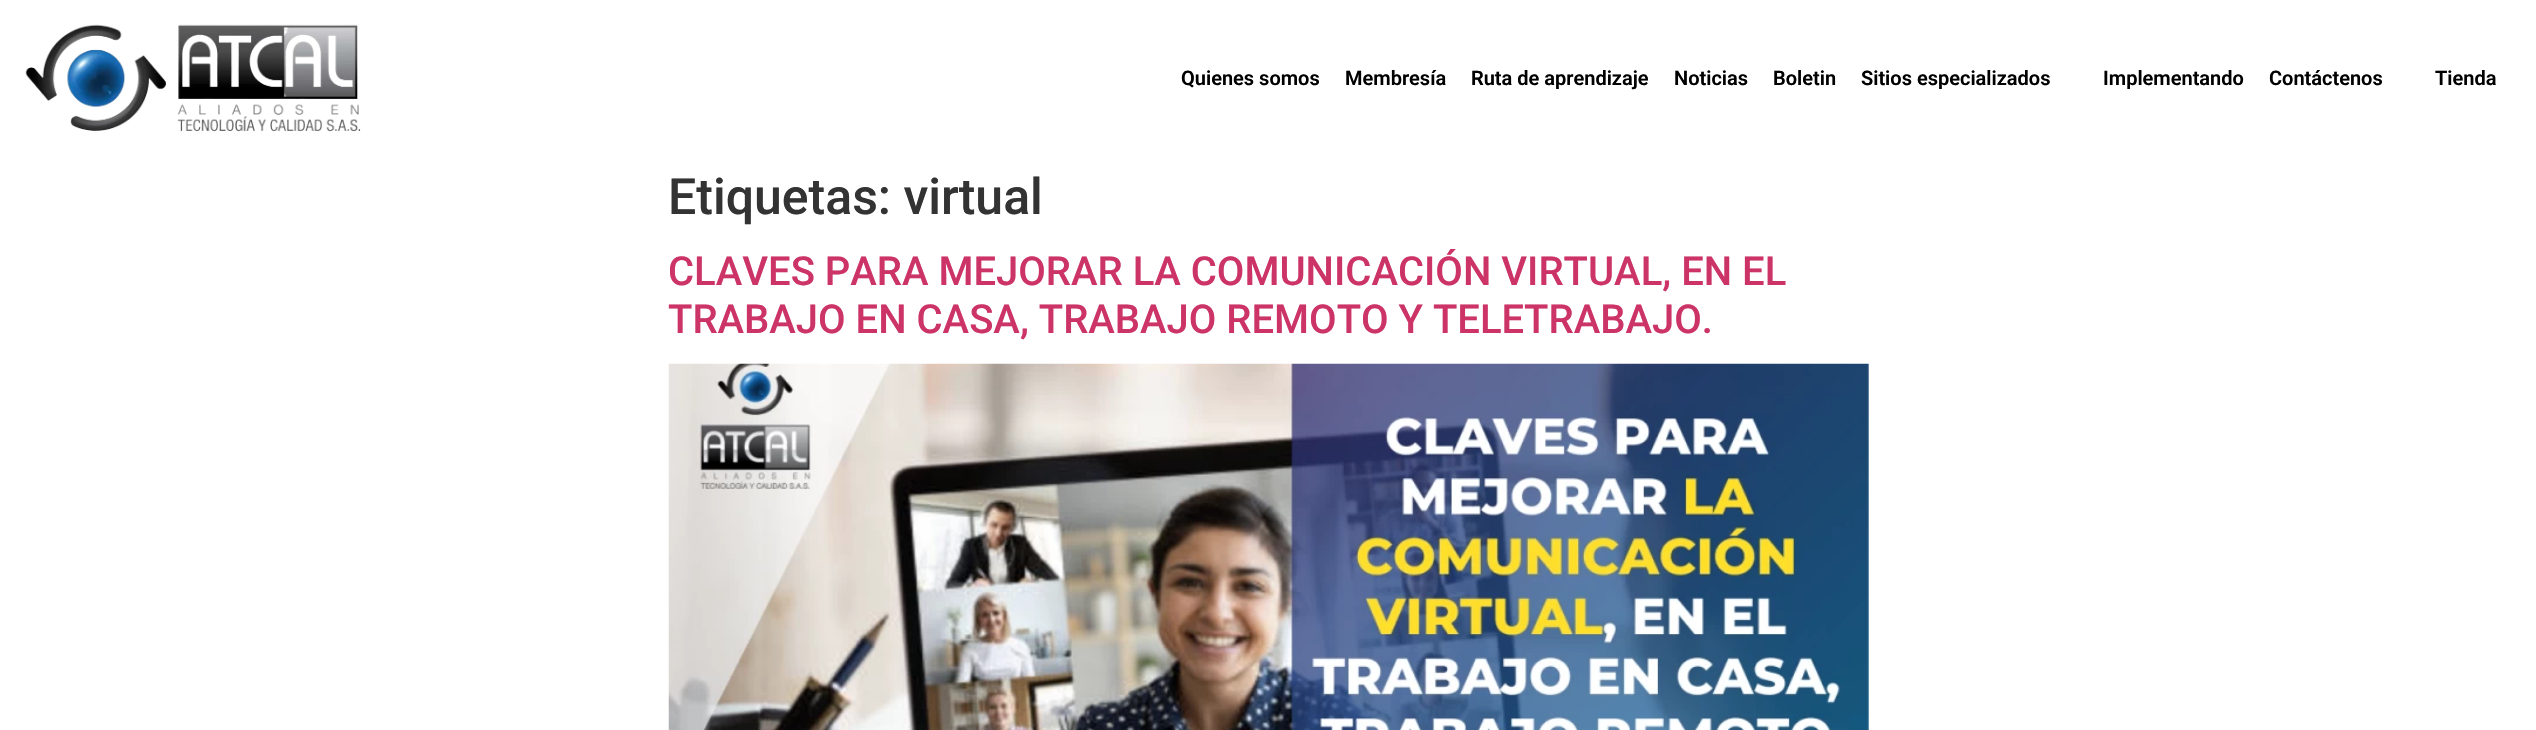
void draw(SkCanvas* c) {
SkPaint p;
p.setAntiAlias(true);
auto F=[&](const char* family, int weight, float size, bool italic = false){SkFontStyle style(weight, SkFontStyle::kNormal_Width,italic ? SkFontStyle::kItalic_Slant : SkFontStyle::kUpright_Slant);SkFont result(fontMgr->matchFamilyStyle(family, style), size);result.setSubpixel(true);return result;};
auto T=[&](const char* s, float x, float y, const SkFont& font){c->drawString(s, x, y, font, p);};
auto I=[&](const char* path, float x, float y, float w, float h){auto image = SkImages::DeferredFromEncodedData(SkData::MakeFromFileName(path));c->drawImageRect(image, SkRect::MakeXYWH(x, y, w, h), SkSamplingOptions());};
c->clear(0xffffffff);
I("1.png",25,24,336,108);
auto f1 = F("Roboto",600,20);
p.setColor(0xff000000);
T("Quienes somos",1181,85,f1);
T("Membresía",1345,85,f1);
T("Ruta de aprendizaje",1471,85,f1);
T("Noticias",1674,85,f1);
T("Boletin",1773,85,f1);
T("Sitios especializados",1861,85,f1);
T("Implementando",2103,85,f1);
T("Contáctenos",2269,85,f1);
T("Tienda",2435,85,f1);
auto f2 = F("Roboto",500,50);
p.setColor(0xff333333);
T("Etiquetas: virtual",668,214,f2);
auto f3 = F("Roboto",500,40);
p.setColor(0xffcc3366);
T("CLAVES PARA MEJORAR LA COMUNICACIÓN VIRTUAL, EN EL",668,285,f3);
T("TRABAJO EN CASA, TRABAJO REMOTO Y TELETRABAJO.",668,333,f3);
I("2.png",668,363,1201,367);
}
